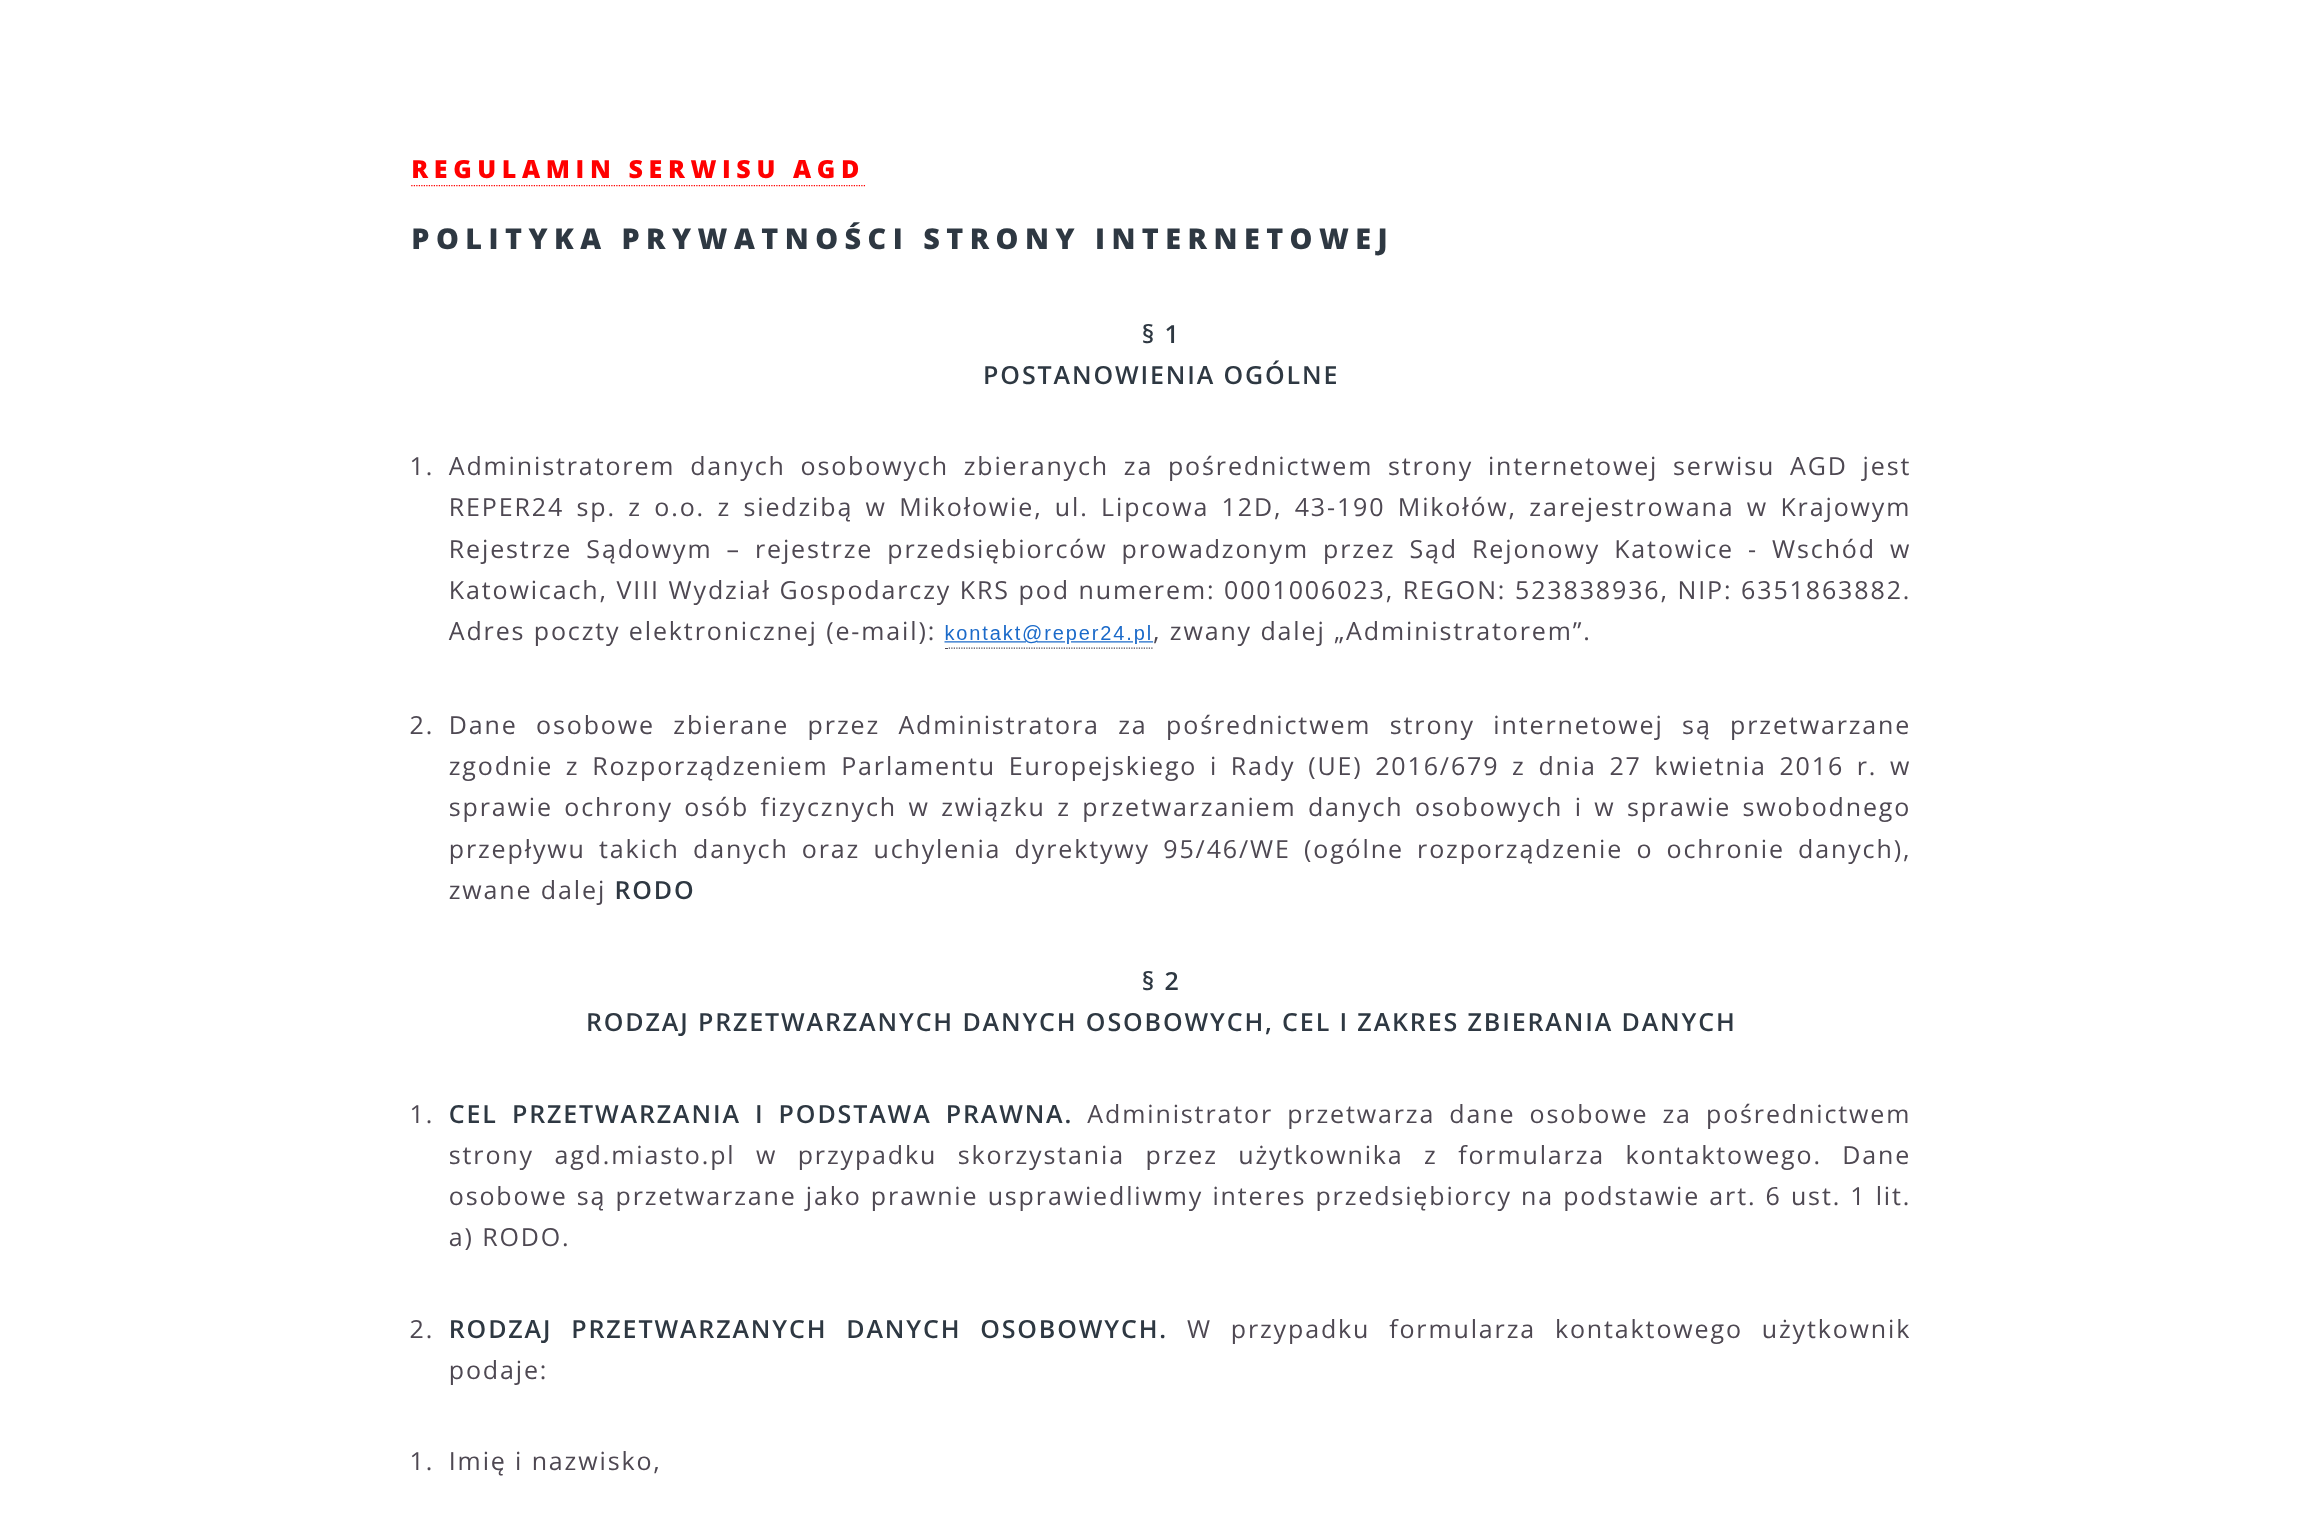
void draw(SkCanvas* c) {
SkPaint p;
p.setAntiAlias(true);
auto I=[&](const char* path, float x, float y, float w, float h){auto image = SkImages::DeferredFromEncodedData(SkData::MakeFromFileName(path));c->drawImageRect(image, SkRect::MakeXYWH(x, y, w, h), SkSamplingOptions());};
c->clear(0xffffffff);
I("1.png",0,0,2322,1523);
}
